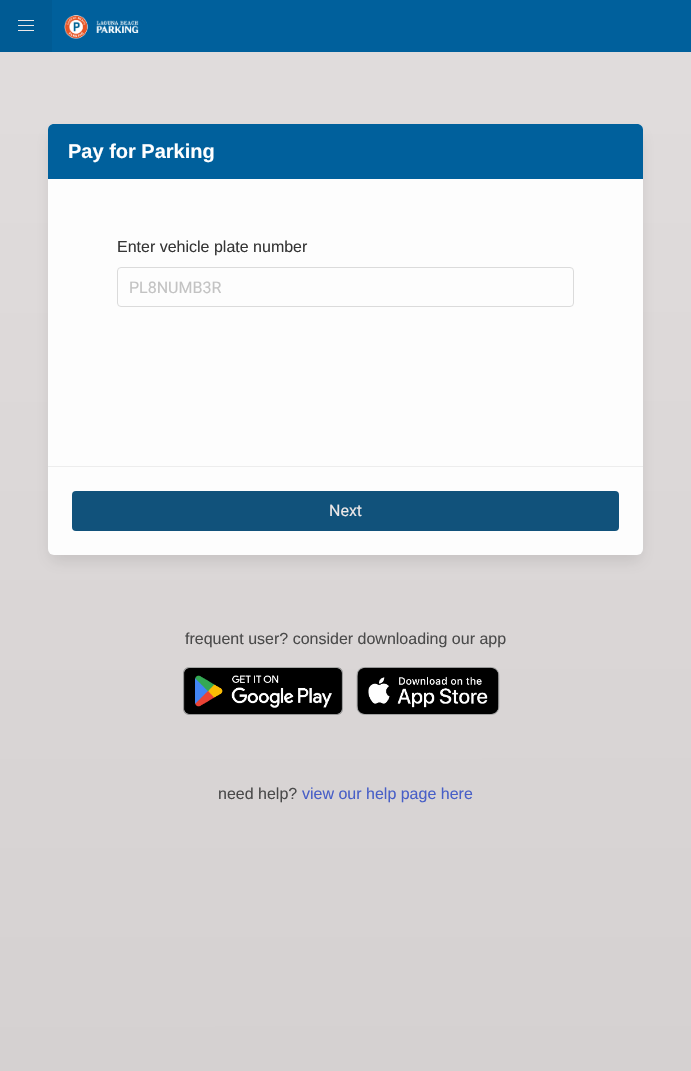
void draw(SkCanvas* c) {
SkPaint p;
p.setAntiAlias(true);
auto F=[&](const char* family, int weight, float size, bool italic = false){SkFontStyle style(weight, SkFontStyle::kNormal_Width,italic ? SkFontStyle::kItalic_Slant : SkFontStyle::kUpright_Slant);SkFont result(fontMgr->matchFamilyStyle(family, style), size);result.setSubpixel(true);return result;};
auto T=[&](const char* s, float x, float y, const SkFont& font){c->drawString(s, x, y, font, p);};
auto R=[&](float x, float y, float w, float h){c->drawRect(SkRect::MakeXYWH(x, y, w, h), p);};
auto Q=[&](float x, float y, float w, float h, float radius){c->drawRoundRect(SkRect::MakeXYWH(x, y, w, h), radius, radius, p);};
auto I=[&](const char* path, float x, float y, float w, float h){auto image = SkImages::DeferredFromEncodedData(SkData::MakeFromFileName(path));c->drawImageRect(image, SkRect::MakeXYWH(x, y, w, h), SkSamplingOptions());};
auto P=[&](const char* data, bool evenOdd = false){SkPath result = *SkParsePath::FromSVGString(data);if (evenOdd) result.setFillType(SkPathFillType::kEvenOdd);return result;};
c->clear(0xffffffff);
{
const SkColor colors[] = {0xffe1dddd,0xffd5d1d1};
const float stops[] = {0,1};
const SkPoint ends[] = {{345,0}, {346,1071}};
p.setShader(SkGradientShader::MakeLinear(ends, colors, stops, 2, SkTileMode::kClamp));
p.setAlpha(255);
}
R(0,52,691,1019);
p.setShader(nullptr);
p.setColor(0xff00609c);
R(52,0,639,52);
p.setColor(0xff005b94);
R(0,0,52,52);
p.setColor(0xffede8e8);
R(18,20,16,1);
R(18,25,16,1);
R(18,30,16,1);
I("1.png",64,15,75,24);
p.setColor(0x1a0a0a0a);
p.setMaskFilter(SkMaskFilter::MakeBlur(kNormal_SkBlurStyle, 8));
c->drawRoundRect(SkRect::MakeXYWH(50,134,591,427),4,4,p);
p.setMaskFilter(nullptr);
p.setColor(0xfffdfdfd);
Q(48,124,595,431,6);
p.setColor(0xff00609c);
c->drawPath(P("M54 124h583c3.5 0 6 2.5 6 6v49h-595v-49c0-3.5 2.5-6 6-6z"),p);
auto f1 = F("Liberation Sans",700,20);
p.setColor(0xffffffff);
T("Pay for Parking",68,158,f1);
p.setColor(0xffededed);
R(48,466,595,1);
auto f2 = F("Liberation Sans",400,16);
p.setColor(0xff363636);
T("Enter vehicle plate number",117,252,f2);
p.setStroke(true);
p.setStrokeWidth(1);
p.setColor(0xffdbdbdb);
c->drawRoundRect(SkRect::MakeXYWH(117.5,267.5,456,39),3.5,3.5,p);
auto f3 = F("Roboto",400,16);
p.setStroke(false);
p.setColor(0xffc3c3c3);
T("PL8NUMB3R",129,293,f3);
p.setColor(0xff11527b);
Q(72,491,547,40,4);
p.setColor(0xffede8e8);
T("Next",329,516,f3);
p.setColor(0xff4a4a4a);
T("frequent user? consider downloading our app",185,644,f2);
I("2.png",183,667,160,48);
I("3.png",356,667,144,48);
T("need help?",218,799,f2);
p.setColor(0xff485fc7);
T("view our help page here",302,799,f2);
}
